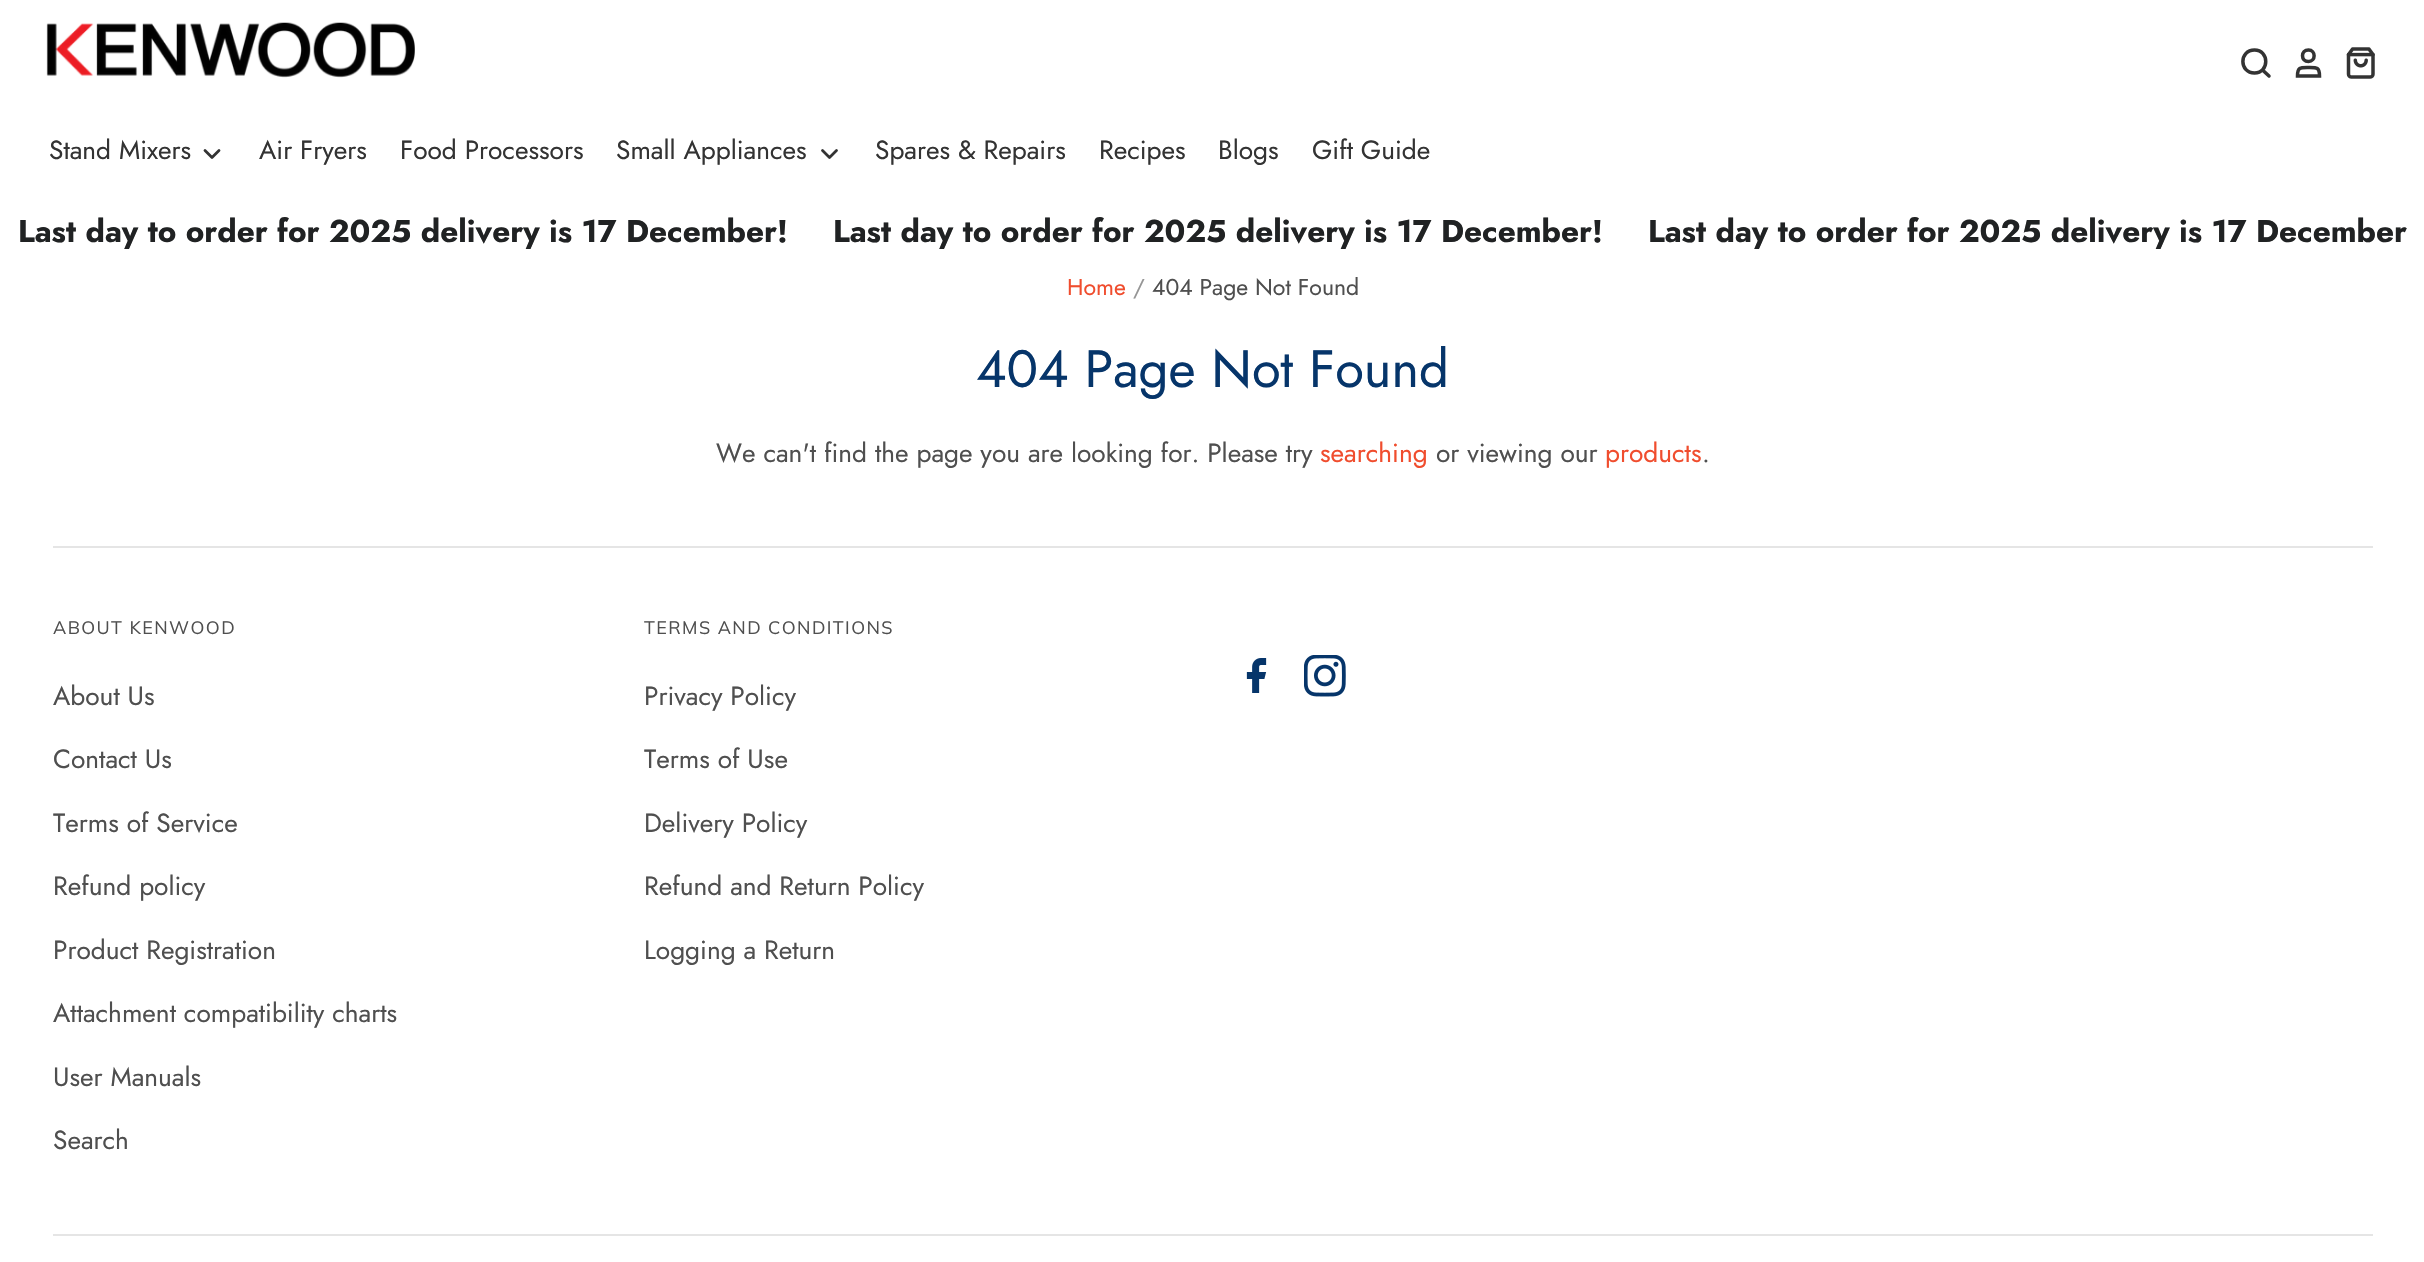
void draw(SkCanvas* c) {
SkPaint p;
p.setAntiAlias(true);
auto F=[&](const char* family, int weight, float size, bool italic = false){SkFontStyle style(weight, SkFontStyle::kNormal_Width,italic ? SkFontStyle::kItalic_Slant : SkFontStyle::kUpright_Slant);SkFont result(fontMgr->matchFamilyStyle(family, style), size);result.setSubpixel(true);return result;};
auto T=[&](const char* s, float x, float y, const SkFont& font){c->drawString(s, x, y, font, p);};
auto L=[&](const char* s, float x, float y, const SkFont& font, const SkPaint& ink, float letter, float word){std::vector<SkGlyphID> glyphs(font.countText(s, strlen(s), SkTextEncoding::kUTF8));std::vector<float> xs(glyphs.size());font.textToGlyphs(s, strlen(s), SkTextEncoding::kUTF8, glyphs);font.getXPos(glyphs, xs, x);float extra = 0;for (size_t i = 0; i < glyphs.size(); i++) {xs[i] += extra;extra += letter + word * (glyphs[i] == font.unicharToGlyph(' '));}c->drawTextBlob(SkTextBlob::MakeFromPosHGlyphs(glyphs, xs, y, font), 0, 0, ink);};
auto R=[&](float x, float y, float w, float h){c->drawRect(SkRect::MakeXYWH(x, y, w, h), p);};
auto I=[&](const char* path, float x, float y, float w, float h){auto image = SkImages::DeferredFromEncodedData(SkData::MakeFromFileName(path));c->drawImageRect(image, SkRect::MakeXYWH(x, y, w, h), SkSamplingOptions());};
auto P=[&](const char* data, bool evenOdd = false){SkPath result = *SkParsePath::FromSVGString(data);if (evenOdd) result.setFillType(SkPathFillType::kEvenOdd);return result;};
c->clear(0xffffffff);
I("1.png",46,22,369,56);
p.setStroke(true);
p.setStrokeWidth(3.5);
p.setStrokeCap(SkPaint::kRound_Cap);
p.setStrokeJoin(SkPaint::kRound_Join);
p.setColor(0xff333333);
c->drawPath(P("M2254.5 50c-15.5 0-15.5 23 0 23c15 0 15-23 0-23zm14.5 26l-6.5-6z"),p);
p.setStrokeCap(SkPaint::kButt_Cap);
p.setStrokeJoin(SkPaint::kMiter_Join);
c->drawPath(P("M2319.5 76c0-9-3-8.5-11-8.5c-8 0-11-.5-11 8.5zm-11-26c-8 0-8 11.5 0 11.5c7.5 0 7.5-11.5 0-11.5z"),p);
I("2.png",2346,47,29,32);
auto f1 = F("Jost",400,26.25);
p.setStroke(false);
T("Stand Mixers",49,159,f1);
p.setStroke(true);
p.setStrokeWidth(2.8);
p.setStrokeCap(SkPaint::kRound_Cap);
p.setStrokeJoin(SkPaint::kRound_Join);
c->drawPath(P("M205 150.5l7 7l7-7"),p);
p.setStroke(false);
T("Air Fryers",259,159,f1);
T("Food Processors",400,159,f1);
T("Small Appliances",616,159,f1);
p.setStroke(true);
c->drawPath(P("M822.5 150.5l7 7l7-7"),p);
p.setStroke(false);
T("Spares & Repairs",875,159,f1);
T("Recipes",1099,159,f1);
T("Blogs",1218,159,f1);
T("Gift Guide",1312,159,f1);
auto f2 = F("Jost",700,31.5);
p.setColor(0xff202223);
T("Last day to order for 2025 delivery is 17 December!",18,242,f2);
T("Last day to order for 2025 delivery is 17 December!",833,242,f2);
T("Last day to order for 2025 delivery is 17 December",1648,242,f2);
auto f3 = F("Jost",400,23);
p.setColor(0xfff04d2e);
T("Home",1067,295,f3);
p.setColor(0xff959595);
T("/",1133,295,f3);
p.setColor(0xff4f4f4f);
T("404 Page Not Found",1152,295,f3);
auto f4 = F("Jost",400,52.5);
p.setColor(0xff06356a);
T("404 Page Not Found",976,387,f4);
p.setColor(0xff4f4f4f);
T("We can't find the page you are looking for. Please try",716,462,f1);
p.setColor(0xfff04d2e);
T("searching",1320,462,f1);
p.setColor(0xff4f4f4f);
T("or viewing our",1436,462,f1);
p.setColor(0xfff04d2e);
T("products",1605,462,f1);
p.setColor(0xff4f4f4f);
T(".",1702,462,f1);
p.setColor(0xffe5e5e5);
R(53,546,2320,2);
auto f5 = F("Muli",400,18);
p.setColor(0xff4f4f4f);
L("ABOUT KENWOOD",53,634,f5,p,1.4,0);
T("About Us",53,705,f1);
T("Contact Us",53,768,f1);
T("Terms of Service",53,832,f1);
T("Refund policy",53,895,f1);
T("Product Registration",53,959,f1);
T("Attachment compatibility charts",53,1022,f1);
T("User Manuals",53,1086,f1);
T("Search",53,1149,f1);
L("TERMS AND CONDITIONS",644,634,f5,p,1.4,0);
T("Privacy Policy",644,705,f1);
T("Terms of Use",644,768,f1);
T("Delivery Policy",644,832,f1);
T("Refund and Return Policy",644,895,f1);
T("Logging a Return",644,959,f1);
I("3.png",1246,658,21,35);
I("4.png",1304,655,42,42);
p.setColor(0xffe5e5e5);
R(53,1234,2320,2);
}
